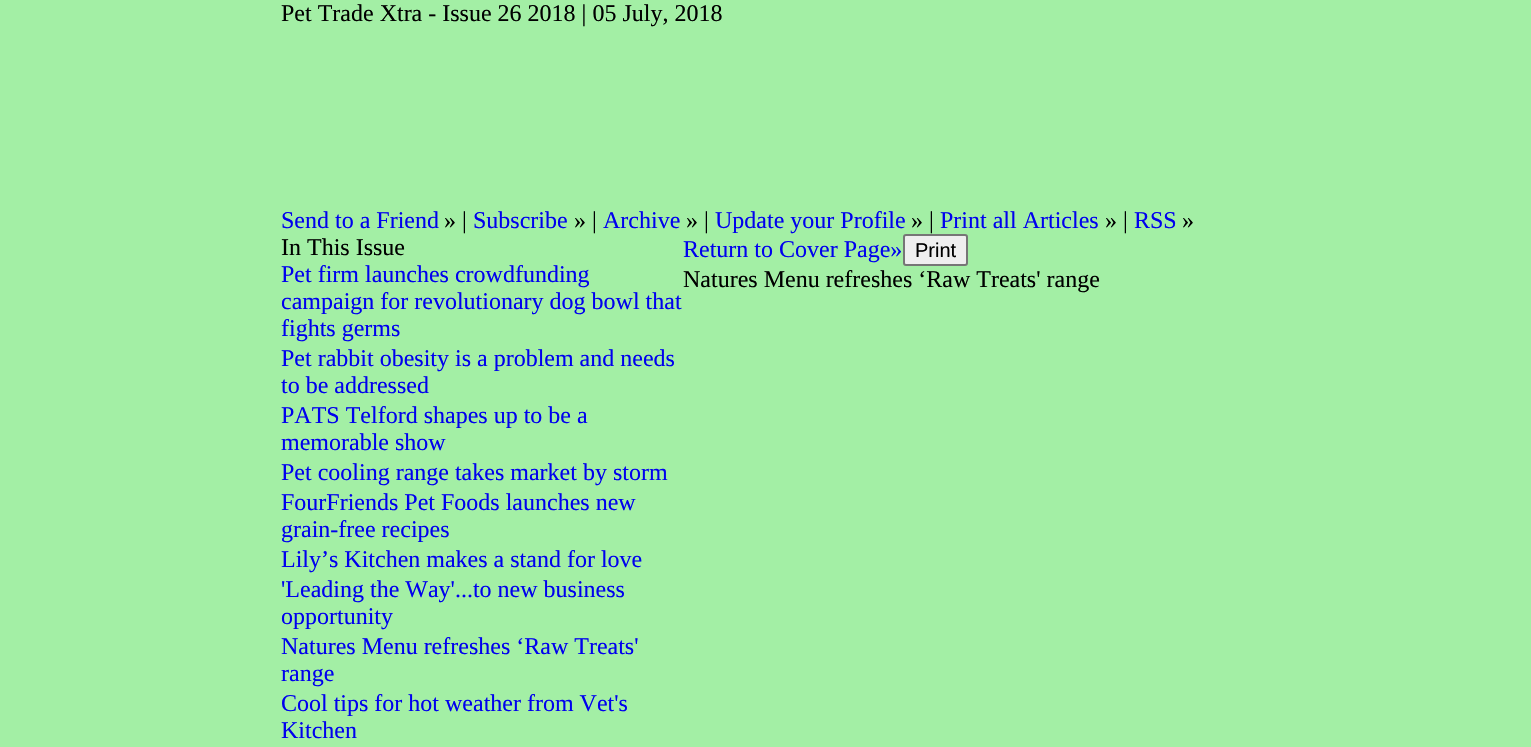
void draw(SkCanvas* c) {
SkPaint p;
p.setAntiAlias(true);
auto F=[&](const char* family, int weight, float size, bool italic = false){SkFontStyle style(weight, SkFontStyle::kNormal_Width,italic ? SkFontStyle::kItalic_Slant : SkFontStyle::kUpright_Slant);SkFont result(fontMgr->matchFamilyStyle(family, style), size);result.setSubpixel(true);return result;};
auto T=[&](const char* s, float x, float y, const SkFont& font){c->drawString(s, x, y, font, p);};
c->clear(0xffa3efa5);
auto f1 = F("Liberation Serif",400,24);
p.setColor(0xff000000);
T("Pet Trade Xtra - Issue 26 2018 | 05 July, 2018",281,21,f1);
p.setColor(0xff0000ee);
T("Send to a Friend",281,228,f1);
p.setColor(0xff000000);
T("» |",444,228,f1);
p.setColor(0xff0000ee);
T("Subscribe",473,228,f1);
p.setColor(0xff000000);
T("» |",574,228,f1);
p.setColor(0xff0000ee);
T("Archive",603,228,f1);
p.setColor(0xff000000);
T("» |",686,228,f1);
p.setColor(0xff0000ee);
T("Update your Profile",715,228,f1);
p.setColor(0xff000000);
T("» |",911,228,f1);
p.setColor(0xff0000ee);
T("Print all Articles",940,228,f1);
p.setColor(0xff000000);
T("» |",1105,228,f1);
p.setColor(0xff0000ee);
T("RSS",1134,228,f1);
p.setColor(0xff000000);
T("»",1182,228,f1);
T("In This Issue",281,255,f1);
p.setColor(0xff0000ee);
T("Pet firm launches crowdfunding",281,282,f1);
T("campaign for revolutionary dog bowl that",281,309,f1);
T("fights germs",281,336,f1);
T("Pet rabbit obesity is a problem and needs",281,366,f1);
T("to be addressed",281,393,f1);
T("PATS Telford shapes up to be a",281,423,f1);
T("memorable show",281,450,f1);
T("Pet cooling range takes market by storm",281,480,f1);
T("FourFriends Pet Foods launches new",281,510,f1);
T("grain-free recipes",281,537,f1);
T("Lily’s Kitchen makes a stand for love",281,567,f1);
T("'Leading the Way'...to new business",281,597,f1);
T("opportunity",281,624,f1);
T("Natures Menu refreshes ‘Raw Treats'",281,654,f1);
T("range",281,681,f1);
T("Cool tips for hot weather from Vet's",281,711,f1);
T("Kitchen",281,738,f1);
T("Return to Cover Page»",683,257,f1);
p.setColor(0xffefefef);
c->drawRoundRect(SkRect::MakeXYWH(904,235,63,30),2,2,p);
p.setStroke(true);
p.setStrokeWidth(2);
p.setColor(0xff767676);
c->drawRoundRect(SkRect::MakeXYWH(904,235,63,30),2,2,p);
auto f2 = F("Liberation Sans",400,20);
p.setStroke(false);
p.setColor(0xff000000);
T("Print",915,257,f2);
T("Natures Menu refreshes ‘Raw Treats' range",683,287,f1);
}
